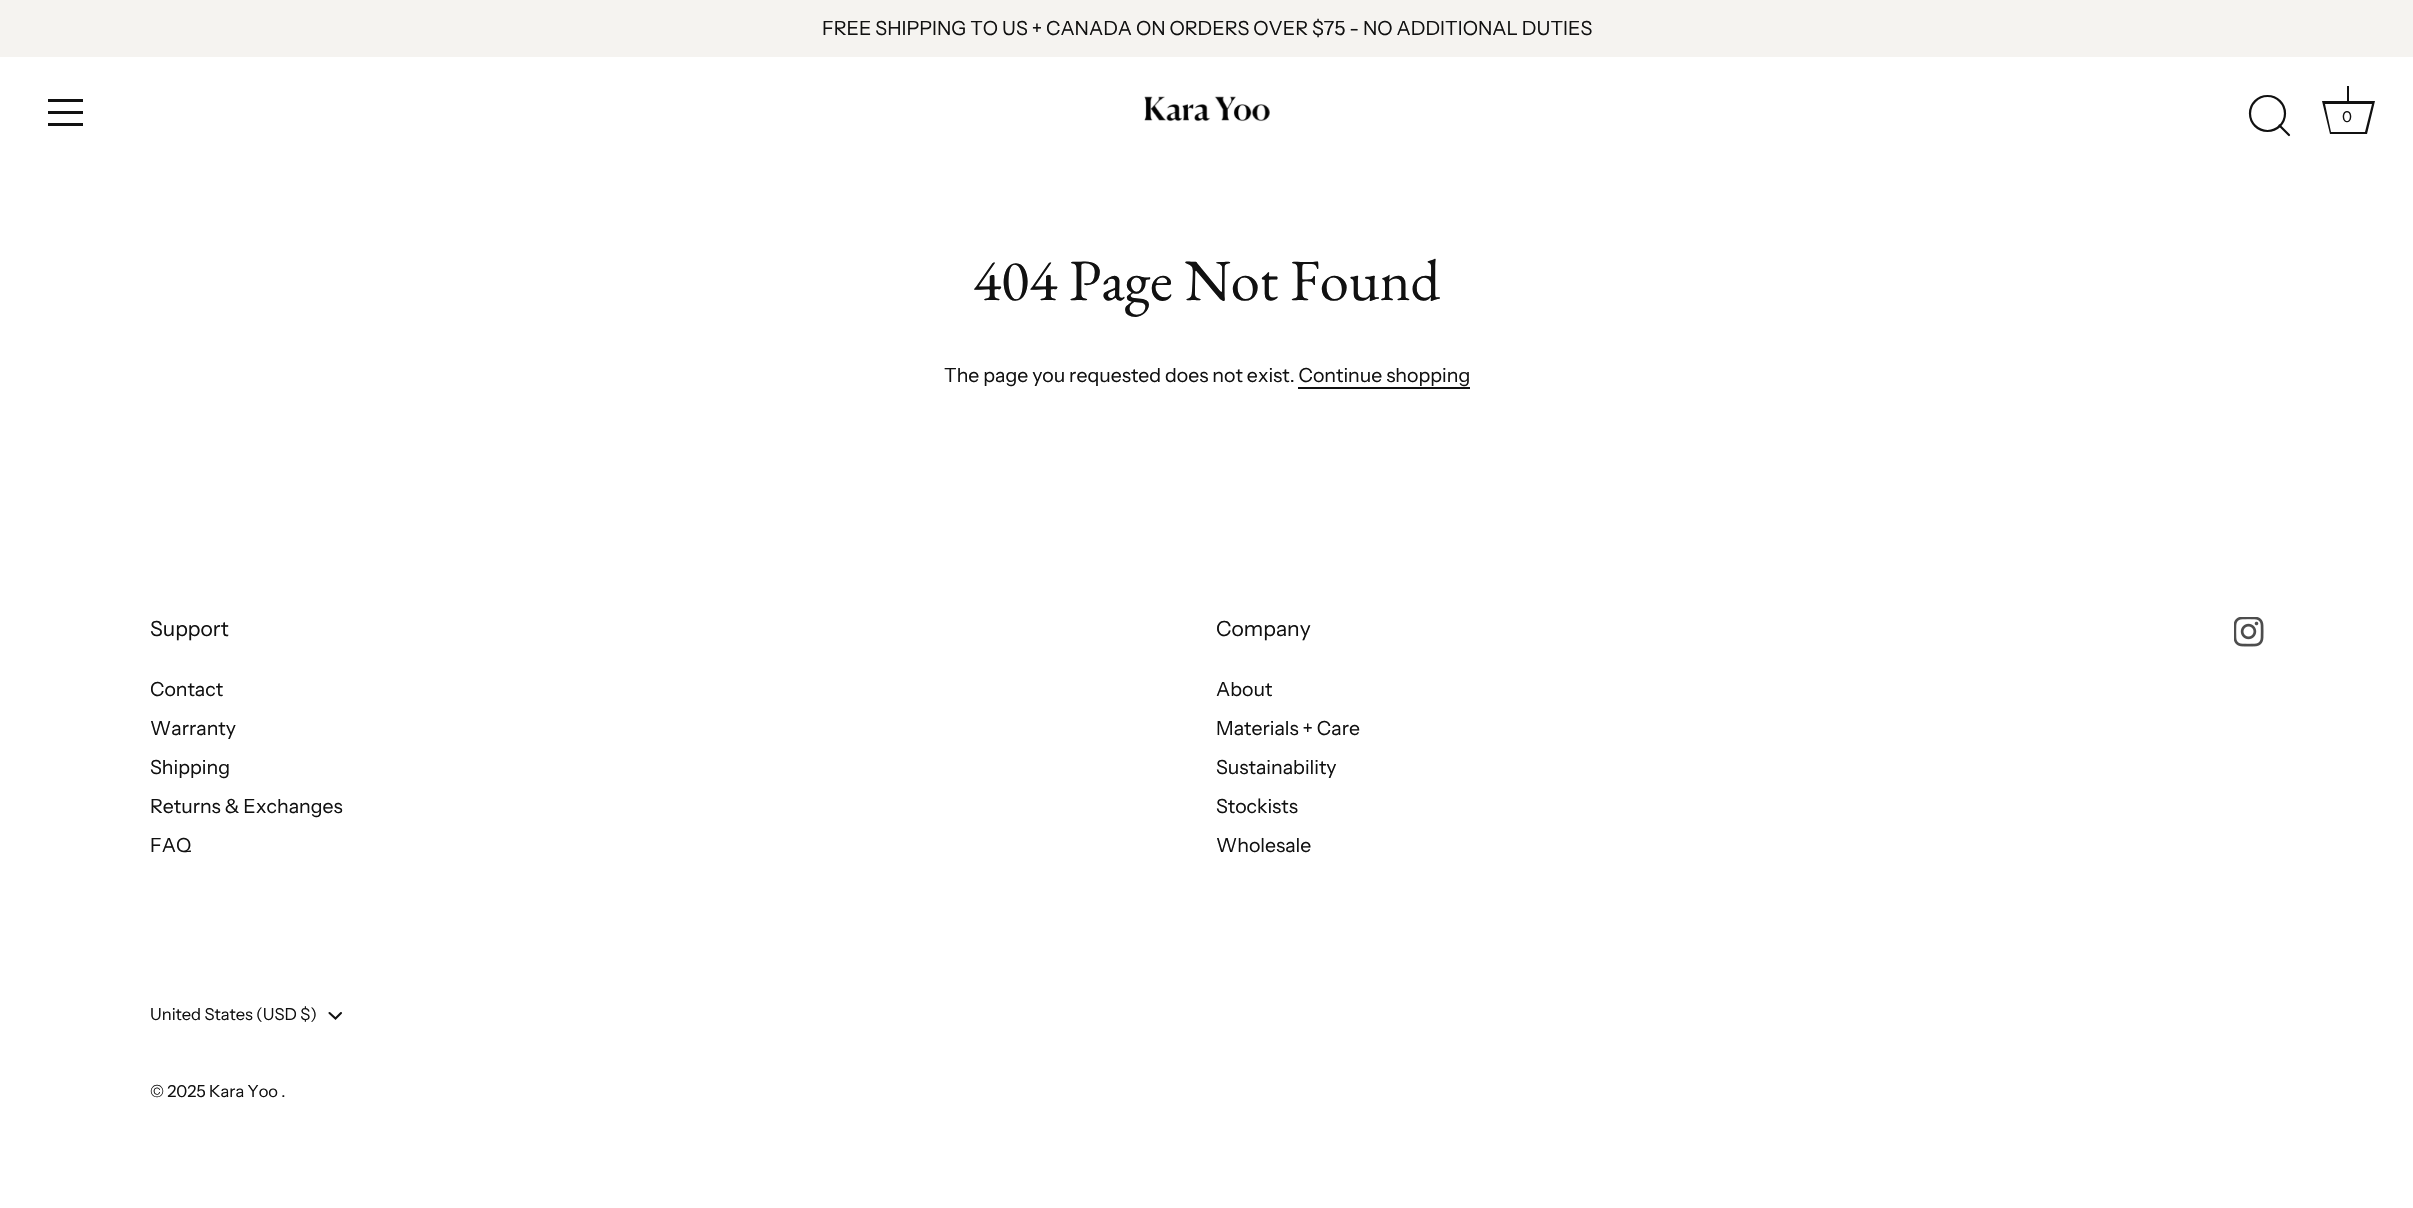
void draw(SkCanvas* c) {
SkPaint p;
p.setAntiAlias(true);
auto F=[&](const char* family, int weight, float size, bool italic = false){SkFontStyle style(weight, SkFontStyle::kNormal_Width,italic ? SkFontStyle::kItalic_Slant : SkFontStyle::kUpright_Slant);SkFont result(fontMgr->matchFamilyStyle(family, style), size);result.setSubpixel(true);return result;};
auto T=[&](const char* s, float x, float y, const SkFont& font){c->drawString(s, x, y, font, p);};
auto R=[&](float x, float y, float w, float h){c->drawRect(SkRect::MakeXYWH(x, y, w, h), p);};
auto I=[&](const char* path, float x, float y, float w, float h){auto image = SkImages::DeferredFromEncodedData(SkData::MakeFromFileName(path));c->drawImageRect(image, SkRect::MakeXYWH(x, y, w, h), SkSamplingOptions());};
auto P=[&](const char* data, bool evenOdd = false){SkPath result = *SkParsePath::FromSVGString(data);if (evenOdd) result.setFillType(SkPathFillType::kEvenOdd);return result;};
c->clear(0xffffffff);
p.setColor(0xfff5f3f0);
R(0,0,2413,57);
auto f1 = F("Instrument Sans",400,19.5);
p.setColor(0xff111111);
T("FREE SHIPPING TO US + CANADA ON ORDERS OVER $75 - NO ADDITIONAL DUTIES",822,35,f1);
R(48,99,35,3);
R(48,111,35,3);
R(48,123,35,3);
I("1.png",1144,96,126,26);
p.setStroke(true);
p.setStrokeWidth(2.2);
c->drawCircle(2267.5,113.5,17.5,p);
p.setStrokeCap(SkPaint::kRound_Cap);
p.setStrokeJoin(SkPaint::kRound_Join);
c->drawPath(P("M2289 135l-9.5-9.5"),p);
p.setStroke(false);
R(2347,86,2,15);
c->drawPath(P("M2372 104l-7 28h-34l-6-28h47m3-3h-53l8 33h37z"),p);
auto f2 = F("Instrument Sans",400,15);
T("0",2342,122,f2);
auto f3 = F("EB Garamond",400,58.5);
T("404 Page Not Found",973,300,f3);
T("The page you requested does not exist. Continue shopping",944,382,f1);
R(1298,387,172,2);
auto f4 = F("Instrument Sans",400,21);
T("Support",150,636,f4);
T("Contact",150,696,f1);
T("Warranty",150,735,f1);
T("Shipping",150,774,f1);
T("Returns & Exchanges",150,813,f1);
T("FAQ",150,852,f1);
T("Company",1216,636,f4);
T("About",1216,696,f1);
T("Materials + Care",1216,735,f1);
T("Sustainability",1216,774,f1);
T("Stockists",1216,813,f1);
T("Wholesale",1216,852,f1);
I("2.png",2234,617,30,30);
auto f5 = F("Instrument Sans",400,16.5);
T("United States (USD $)",150,1020,f5);
p.setStroke(true);
p.setStrokeWidth(2.1);
p.setStrokeJoin(SkPaint::kMiter_Join);
c->drawPath(P("M329.5 1013l6 5.5l5.5-5.5"),p);
p.setStroke(false);
T("© 2025 Kara Yoo .",150,1097,f5);
}
